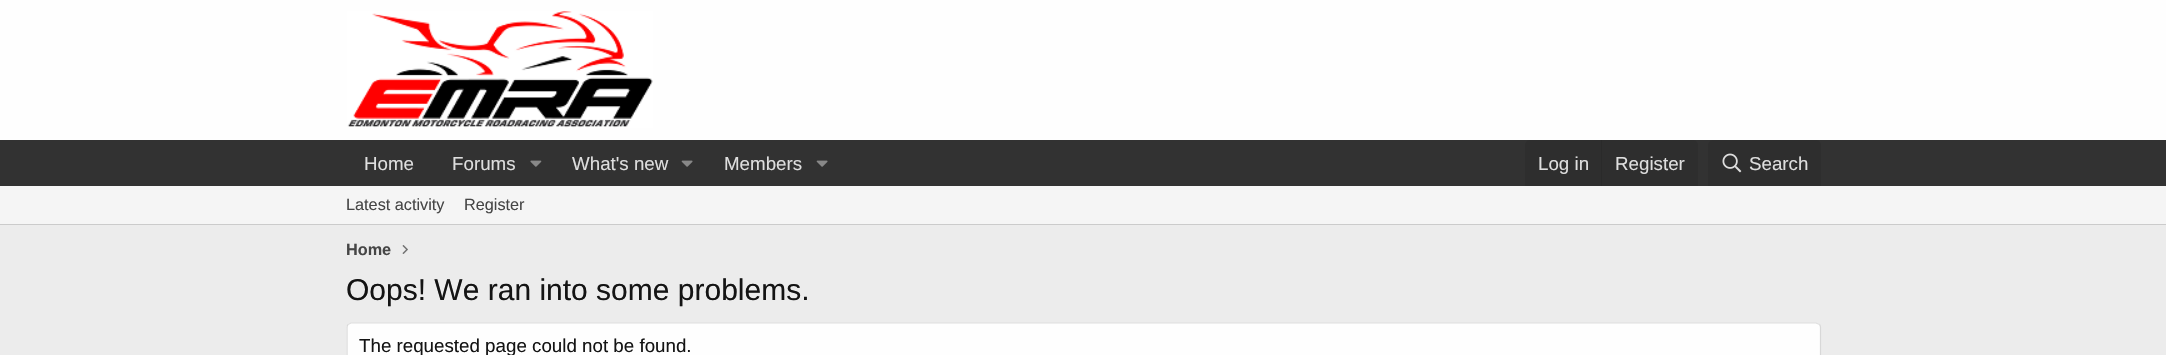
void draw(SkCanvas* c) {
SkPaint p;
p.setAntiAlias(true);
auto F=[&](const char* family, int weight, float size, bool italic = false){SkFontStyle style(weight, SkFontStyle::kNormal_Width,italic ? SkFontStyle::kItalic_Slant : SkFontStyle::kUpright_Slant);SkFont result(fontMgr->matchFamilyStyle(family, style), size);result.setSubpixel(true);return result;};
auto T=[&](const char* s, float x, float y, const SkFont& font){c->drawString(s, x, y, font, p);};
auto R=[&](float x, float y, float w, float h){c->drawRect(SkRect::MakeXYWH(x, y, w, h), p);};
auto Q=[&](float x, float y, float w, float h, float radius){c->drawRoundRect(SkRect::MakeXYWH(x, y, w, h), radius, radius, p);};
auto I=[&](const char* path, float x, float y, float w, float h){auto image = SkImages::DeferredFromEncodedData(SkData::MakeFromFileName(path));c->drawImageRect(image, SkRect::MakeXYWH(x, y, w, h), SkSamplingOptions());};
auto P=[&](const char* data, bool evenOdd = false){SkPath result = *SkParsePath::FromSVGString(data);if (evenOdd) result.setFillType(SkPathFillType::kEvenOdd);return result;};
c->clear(0xffececec);
p.setColor(0xfffefefe);
R(0,0,2166,140);
I("1.png",347,11,306,117);
p.setColor(0xff323232);
R(0,140,2166,46);
auto f1 = F("Liberation Sans",400,18.75);
p.setColor(0xffdedede);
T("Home",364,170,f1);
T("Forums",452,170,f1);
I("2.png",530,160,12,7);
T("What's new",572,170,f1);
I("3.png",681,160,12,7);
T("Members",724,170,f1);
I("3.png",816,160,12,7);
p.setColor(0xff2e2e2e);
c->drawPath(P("M1530 140h163c3 0 5 2 5 5v41h-173v-41c0-3 2-5 5-5z"),p);
p.setColor(0xffdedede);
T("Log in",1538,170,f1);
p.setColor(0xff2a2a2a);
R(1601,140,1,46);
p.setColor(0xffdedede);
T("Register",1615,170,f1);
p.setColor(0xff2e2e2e);
c->drawPath(P("M1713 140h103c3 0 5 2 5 5v41h-113v-41c0-3 2-5 5-5z"),p);
I("4.png",1722,153,20,20);
p.setColor(0xffdedede);
T("Search",1749,170,f1);
p.setColor(0xfff5f5f5);
R(0,186,2166,38);
p.setColor(0xffcbcbcb);
R(0,224,2166,1);
auto f2 = F("Liberation Sans",400,16.25);
p.setColor(0xff464646);
T("Latest activity",346,210,f2);
T("Register",464,210,f2);
auto f3 = F("Liberation Sans",700,16.25);
T("Home",346,255,f3);
I("5.png",402,245,6,9);
auto f4 = F("Liberation Sans",400,30);
p.setColor(0xff141414);
T("Oops! We ran into some problems.",346,300,f4);
p.setColor(0xfffefefe);
Q(346,323,1475,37,5);
p.setStroke(true);
p.setStrokeWidth(1.2);
p.setColor(0xffdfdfdf);
c->drawPath(P("M348 324.5l3-1.5h1465l3.5 1.5"),p);
p.setColor(0xffd8d8d8);
c->drawPath(P("M1819.5 324.5c.5 .5 1 2 1 3v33.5c0 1.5-.5 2.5-1 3.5"),p);
c->drawPath(P("M348 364.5c-.5-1-1-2-1-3.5v-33.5c0-1 .5-2.5 1-3"),p);
p.setStroke(false);
p.setColor(0xff141414);
T("The requested page could not be found.",359,352,f1);
}
